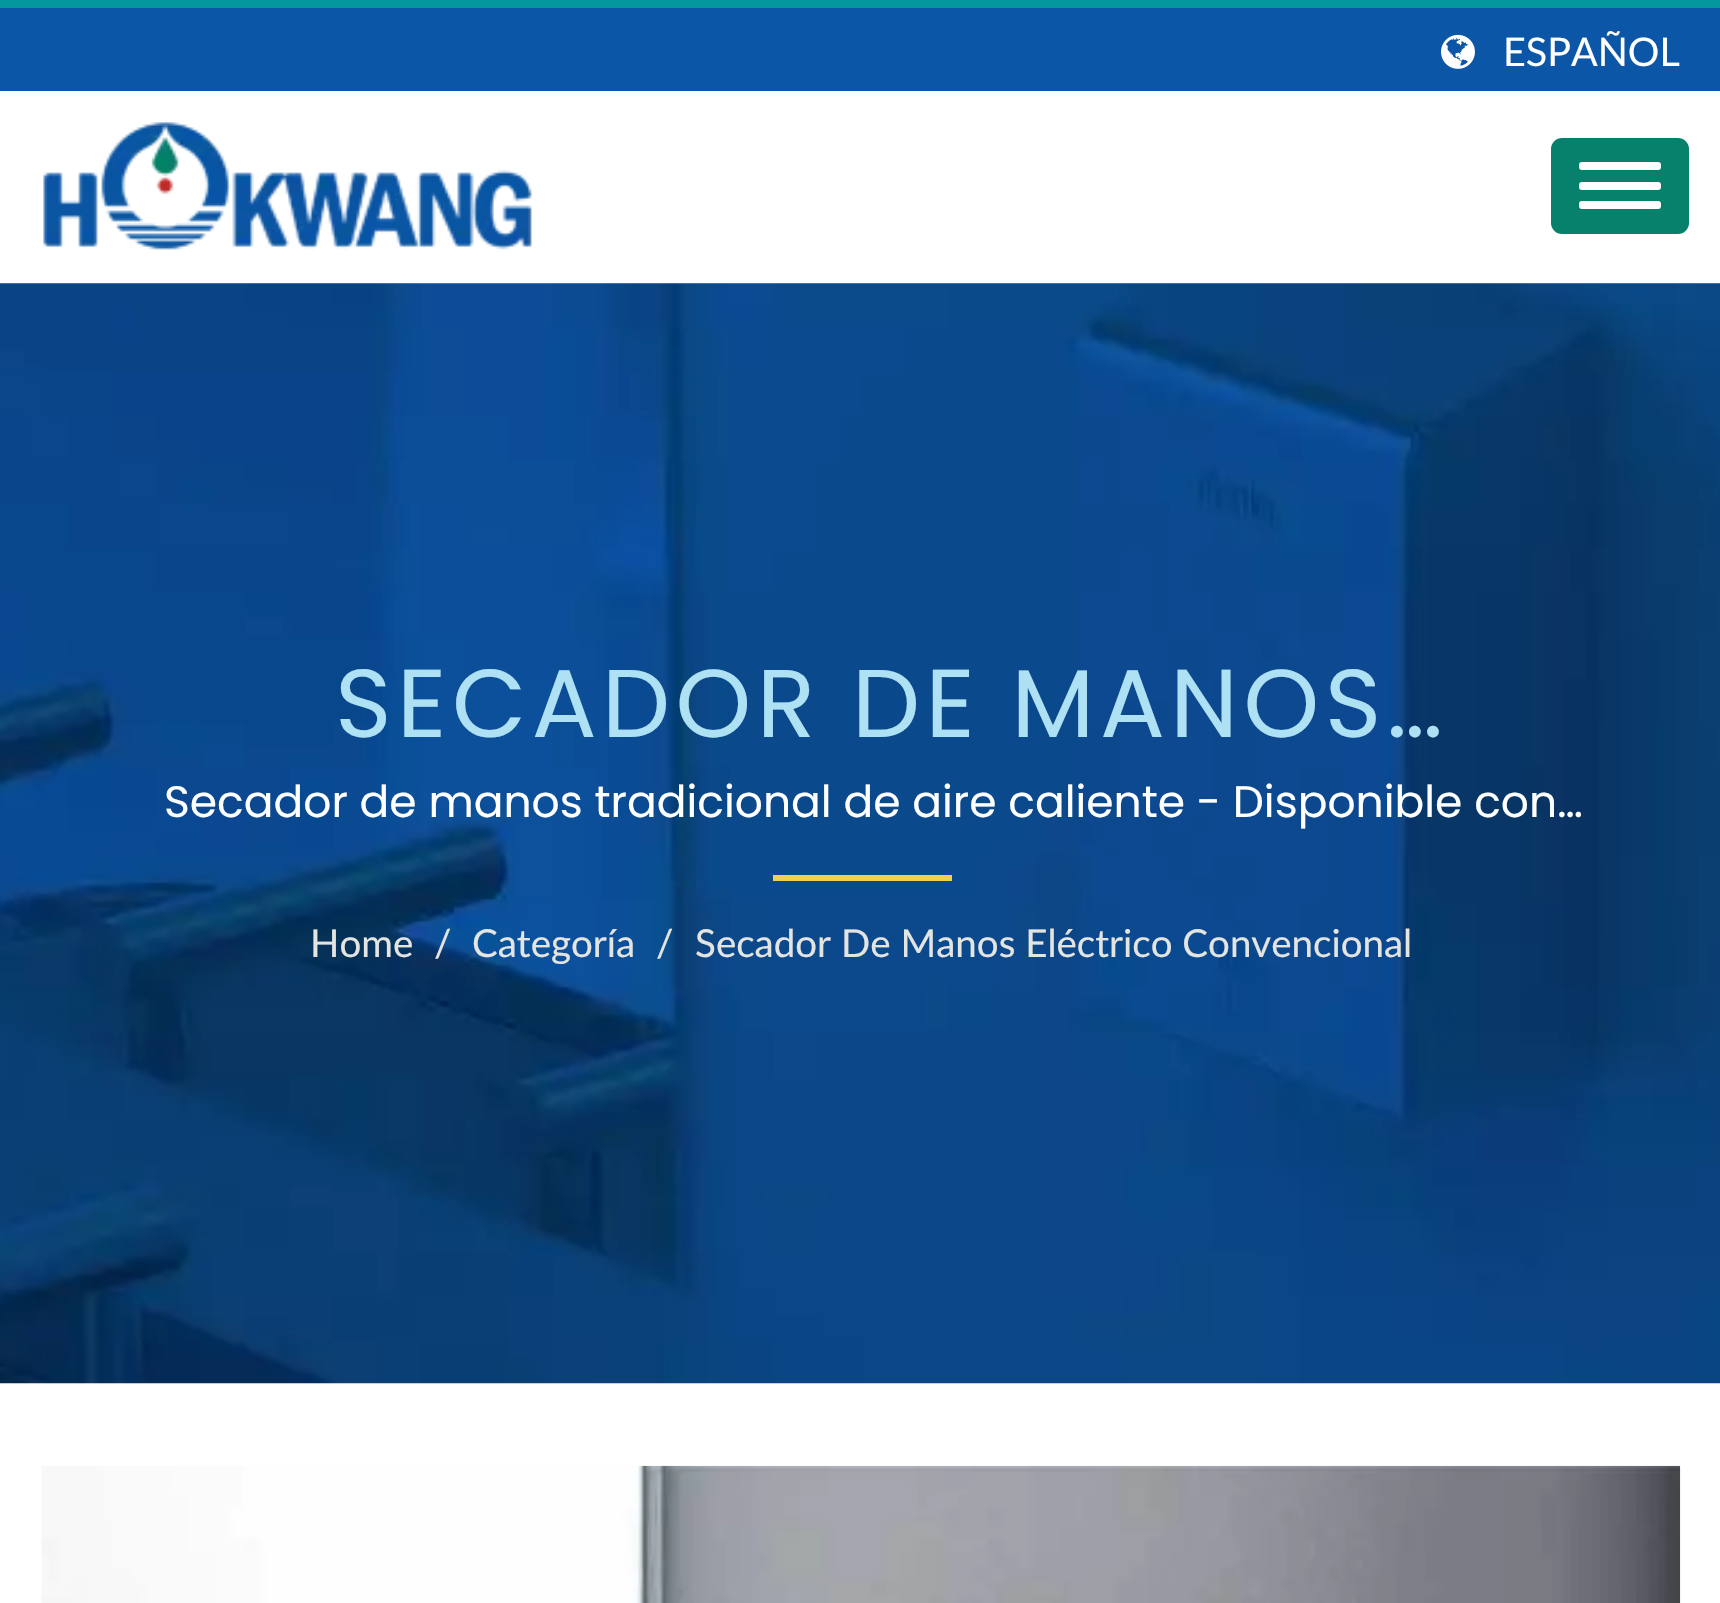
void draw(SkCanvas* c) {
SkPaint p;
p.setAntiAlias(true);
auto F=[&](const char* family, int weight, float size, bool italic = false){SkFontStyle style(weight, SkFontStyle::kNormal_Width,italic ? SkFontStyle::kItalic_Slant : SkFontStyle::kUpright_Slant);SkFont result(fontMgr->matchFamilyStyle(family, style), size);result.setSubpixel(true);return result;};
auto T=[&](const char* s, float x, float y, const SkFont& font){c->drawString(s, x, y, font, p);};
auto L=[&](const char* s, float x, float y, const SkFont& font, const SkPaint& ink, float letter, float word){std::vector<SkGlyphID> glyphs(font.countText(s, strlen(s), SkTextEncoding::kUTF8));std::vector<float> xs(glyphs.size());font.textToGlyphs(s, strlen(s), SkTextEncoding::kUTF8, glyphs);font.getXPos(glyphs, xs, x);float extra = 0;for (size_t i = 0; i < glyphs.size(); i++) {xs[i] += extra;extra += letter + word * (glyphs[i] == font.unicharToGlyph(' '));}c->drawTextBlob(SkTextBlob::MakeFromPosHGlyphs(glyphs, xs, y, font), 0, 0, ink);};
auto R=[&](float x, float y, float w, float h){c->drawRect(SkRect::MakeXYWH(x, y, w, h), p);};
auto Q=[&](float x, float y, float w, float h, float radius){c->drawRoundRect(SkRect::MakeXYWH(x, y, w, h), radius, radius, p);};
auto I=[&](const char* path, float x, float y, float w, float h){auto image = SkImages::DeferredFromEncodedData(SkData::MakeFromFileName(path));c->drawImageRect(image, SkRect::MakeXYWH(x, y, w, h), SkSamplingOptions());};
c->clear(0xffffffff);
p.setColor(0xff0b56a6);
R(0,8,1720,83);
p.setColor(0xff04979e);
R(0,0,1720,8);
I("1.png",1441,34,34,35);
auto f1 = F("Lato",400,39.5);
p.setColor(0xffffffff);
T("ESPAÑOL",1503,66,f1);
I("2.png",43,122,489,128);
p.setColor(0xff08816c);
Q(1551,138,138,96,11);
p.setColor(0xffffffff);
Q(1579,162,82,8,3);
Q(1579,182,82,8,3);
Q(1579,201,82,8,3);
I("3.png",0,283,1720,1101);
auto f2 = F("Poppins",400,96.25);
p.setColor(0xffaee1f4);
L("SECADOR DE MANOS…",335,737,f2,p,5.5,0);
auto f3 = F("Poppins",400,44);
p.setColor(0xffffffff);
T("Secador de manos tradicional de aire caliente - Disponible con…",164,817,f3);
p.setColor(0xfff1cf4f);
R(773,875,179,6);
auto f4 = F("Lato",400,38.5);
p.setColor(0xffe4e5e1);
T("Home",310,957,f4);
T("/",434,957,f4);
T("Categoría",472,957,f4);
T("/",656,957,f4);
T("Secador De Manos Eléctrico Convencional",695,957,f4);
I("4.png",41,1465,1640,138);
}
